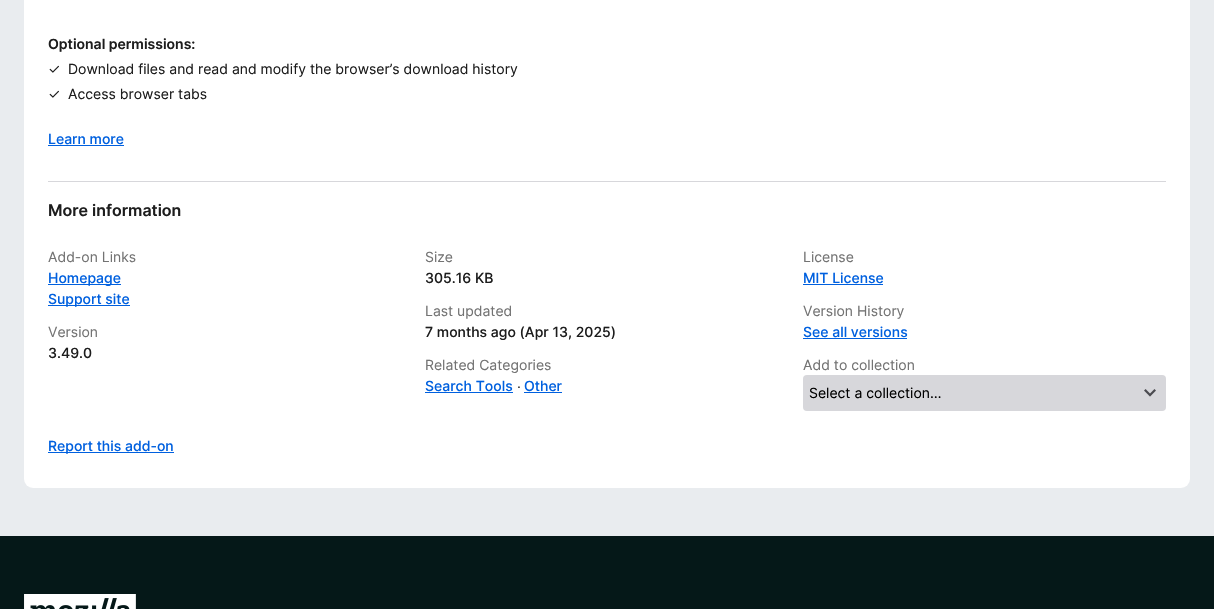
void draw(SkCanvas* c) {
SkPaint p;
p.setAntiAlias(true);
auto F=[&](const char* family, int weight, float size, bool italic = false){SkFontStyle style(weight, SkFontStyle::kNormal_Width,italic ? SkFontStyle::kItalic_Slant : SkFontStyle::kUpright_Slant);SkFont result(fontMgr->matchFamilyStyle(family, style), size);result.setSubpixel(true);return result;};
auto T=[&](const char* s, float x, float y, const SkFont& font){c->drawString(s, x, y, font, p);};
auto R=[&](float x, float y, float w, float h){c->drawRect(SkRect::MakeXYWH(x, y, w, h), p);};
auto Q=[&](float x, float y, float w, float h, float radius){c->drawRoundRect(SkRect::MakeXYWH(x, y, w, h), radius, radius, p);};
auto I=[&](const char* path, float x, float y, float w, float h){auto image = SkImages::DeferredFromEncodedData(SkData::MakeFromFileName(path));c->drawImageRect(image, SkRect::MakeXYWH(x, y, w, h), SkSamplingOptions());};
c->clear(0xffe9ecef);
p.setColor(0xffffffff);
Q(24,-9,1166,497,9);
auto f1 = F("Inter",600,14);
p.setColor(0xff1d1d1d);
T("Optional permissions:",48,49,f1);
auto f2 = F("Inter",400,14);
T("✓",48,74,f2);
T("Download files and read and modify the browser’s download history",68,74,f2);
T("✓",48,99,f2);
T("Access browser tabs",68,99,f2);
auto f3 = F("Inter",500,14);
p.setColor(0xff0060df);
T("Learn more",48,144,f3);
R(48,145,76,1);
p.setColor(0xffd7d7db);
R(48,181,1118,1);
auto f4 = F("Inter",600,16);
p.setColor(0xff1d1d1d);
T("More information",48,216,f4);
p.setColor(0xff737373);
T("Add-on Links",48,262,f2);
p.setColor(0xff0060df);
R(48,284,73,1);
T("Homepage",48,283,f3);
R(48,305,82,1);
T("Support site",48,304,f3);
p.setColor(0xff737373);
T("Size",425,262,f2);
p.setColor(0xff1d1d1d);
T("305.16 KB",425,283,f3);
p.setColor(0xff737373);
T("License",803,262,f2);
p.setColor(0xff0060df);
T("MIT License",803,283,f3);
R(803,284,80,1);
p.setColor(0xff737373);
T("Last updated",425,316,f2);
p.setColor(0xff1d1d1d);
T("7 months ago (Apr 13, 2025)",425,337,f3);
p.setColor(0xff737373);
T("Version History",803,316,f2);
p.setColor(0xff0060df);
T("See all versions",803,337,f3);
R(803,338,104,1);
p.setColor(0xff737373);
T("Version",48,337,f2);
p.setColor(0xff1d1d1d);
T("3.49.0",48,358,f3);
p.setColor(0xff737373);
T("Related Categories",425,370,f2);
p.setColor(0xff0060df);
T("Search Tools",425,391,f3);
R(425,392,88,1);
auto f5 = F("Liberation Sans",400,14);
p.setColor(0xff1d1d1d);
T("∙",517,391,f5);
p.setColor(0xff0060df);
T("Other",524,391,f3);
R(524,392,38,1);
p.setColor(0xff737373);
T("Add to collection",803,370,f2);
p.setColor(0xffd7d7db);
Q(803,375,363,36,4);
I("1.png",1144,389,12,8);
p.setColor(0xff000000);
T("Select a collection…",809,398,f2);
p.setColor(0xff0060df);
R(48,452,126,1);
T("Report this add-on",48,451,f3);
p.setColor(0xff051818);
R(0,536,1214,73);
I("2.png",24,594,112,15);
}
